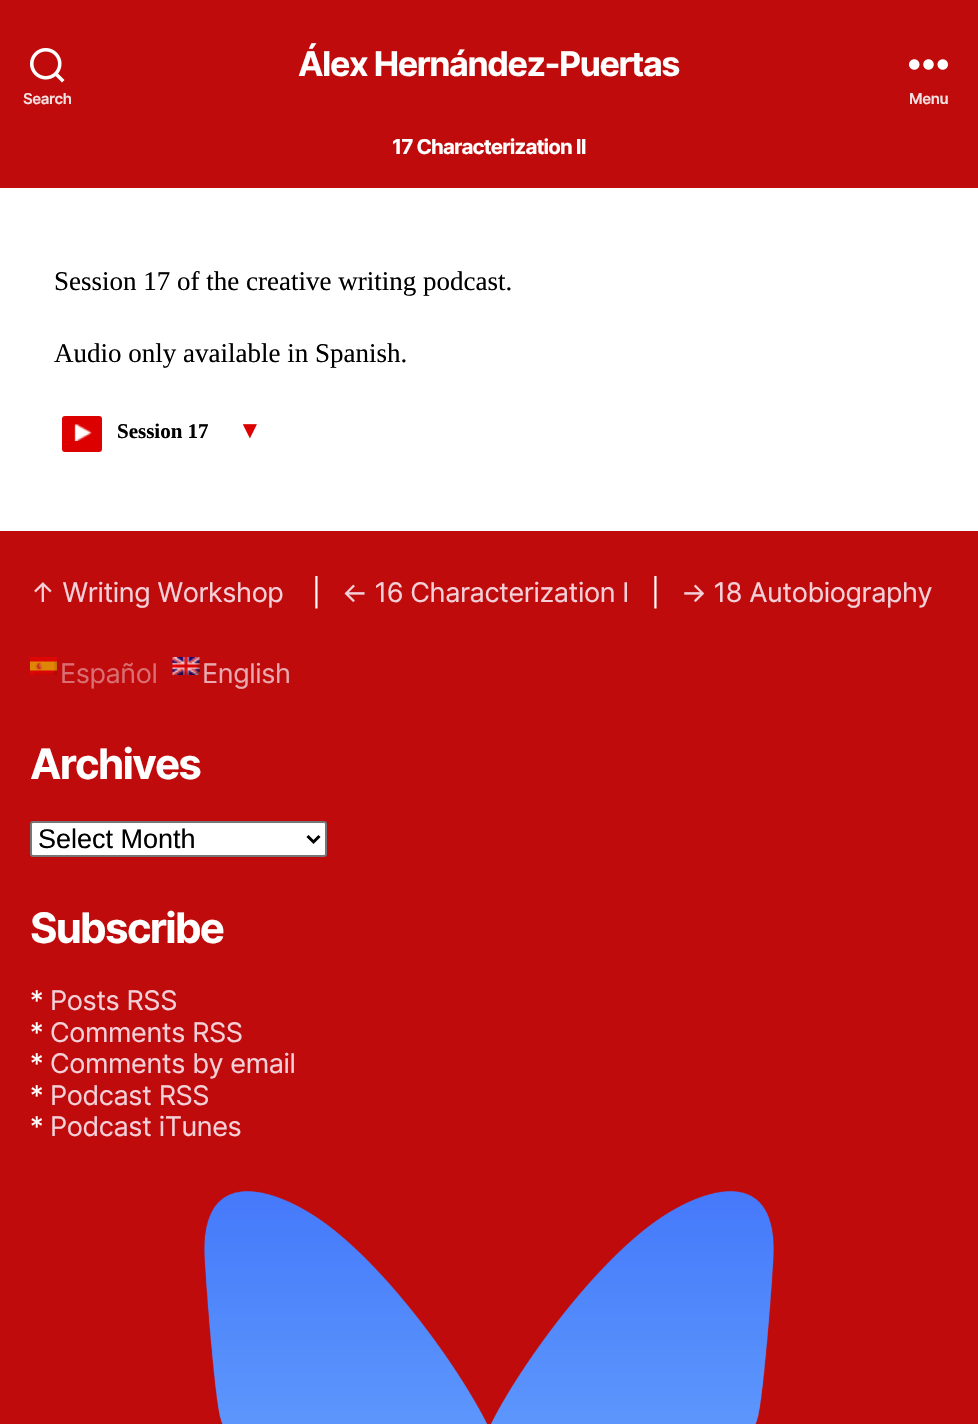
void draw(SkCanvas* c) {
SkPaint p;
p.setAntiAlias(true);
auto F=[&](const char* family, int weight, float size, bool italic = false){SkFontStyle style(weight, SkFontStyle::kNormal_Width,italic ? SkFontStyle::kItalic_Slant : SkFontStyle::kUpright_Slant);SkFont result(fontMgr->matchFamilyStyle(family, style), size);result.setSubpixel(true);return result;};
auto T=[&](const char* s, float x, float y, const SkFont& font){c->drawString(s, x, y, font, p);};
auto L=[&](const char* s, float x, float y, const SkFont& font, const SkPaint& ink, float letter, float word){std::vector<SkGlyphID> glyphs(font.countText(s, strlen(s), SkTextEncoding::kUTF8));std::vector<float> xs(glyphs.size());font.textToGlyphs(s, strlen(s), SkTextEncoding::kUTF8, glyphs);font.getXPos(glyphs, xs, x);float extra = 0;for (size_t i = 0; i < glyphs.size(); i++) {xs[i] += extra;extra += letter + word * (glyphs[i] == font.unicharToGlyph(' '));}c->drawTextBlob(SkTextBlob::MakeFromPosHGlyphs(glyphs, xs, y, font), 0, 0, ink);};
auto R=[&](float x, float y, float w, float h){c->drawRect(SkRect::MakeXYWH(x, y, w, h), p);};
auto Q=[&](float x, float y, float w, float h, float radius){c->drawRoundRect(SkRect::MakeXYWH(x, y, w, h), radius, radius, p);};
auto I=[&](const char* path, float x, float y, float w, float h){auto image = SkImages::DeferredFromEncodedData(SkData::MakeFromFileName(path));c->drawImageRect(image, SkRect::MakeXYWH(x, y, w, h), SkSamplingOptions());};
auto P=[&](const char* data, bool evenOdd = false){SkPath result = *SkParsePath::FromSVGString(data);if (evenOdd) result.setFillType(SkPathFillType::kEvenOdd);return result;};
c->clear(0xffffffff);
p.setColor(0xffbf0b0b);
R(0,0,978,188);
auto f1 = F("Inter",700,34.1);
p.setColor(0xffffffff);
L("Álex Hernández-Puertas",298,76,f1,p,-1.4,0);
I("1.png",30,48,35,35);
auto f2 = F("Inter",600,15);
p.setColor(0xfff3e1e1);
L("Search",23,104,f2,p,-.4,0);
I("2.png",909,59,39,11);
L("Menu",909,104,f2,p,-.4,0);
auto f3 = F("Inter",700,20.5);
p.setColor(0xffffffff);
L("17 Characterization II",392,154,f3,p,-.85,0);
auto f4 = F("Liberation Serif",400,27);
p.setColor(0xff000000);
T("Session 17 of the creative writing podcast.",54,290,f4);
T("Audio only available in Spanish.",54,362,f4);
p.setColor(0xffdd0000);
Q(62,416,40,36,3);
I("3.png",74,424,18,17);
auto f5 = F("Liberation Serif",700,21);
p.setColor(0xff000000);
T("Session 17",117,438,f5);
auto f6 = F("Liberation Serif",400,24);
p.setColor(0xffdd0000);
T("▼",238,438,f6);
p.setColor(0xffbf0b0b);
R(0,531,978,893);
auto f7 = F("Inter",400,27);
p.setColor(0xfff4d1d9);
L("↑ Writing Workshop",30,602,f7,p,-.4,0);
p.setColor(0xffffffff);
L("|",312,602,f7,p,-.4,0);
p.setColor(0xfff4d1d9);
L("← 16 Characterization I",342,602,f7,p,-.4,0);
p.setColor(0xffffffff);
L("|",651,602,f7,p,-.4,0);
p.setColor(0xfff4d1d9);
L("→ 18 Autobiography",681,602,f7,p,-.4,0);
I("4.png",30,657,27,18);
p.setColor(0xffda6e72);
L("Español",60,683,f7,p,-.4,0);
I("5.png",172,657,28,18);
p.setColor(0xffe9a9b0);
L("English",202,683,f7,p,-.4,0);
auto f8 = F("Inter",700,42);
p.setColor(0xffffffff);
L("Archives",30,779,f8,p,-1.75,0);
c->drawRoundRect(SkRect::MakeXYWH(31,822,295,34),2,2,p);
p.setStroke(true);
p.setStrokeWidth(2);
p.setColor(0xff767676);
c->drawRoundRect(SkRect::MakeXYWH(31,822,295,34),2,2,p);
p.setStrokeWidth(3);
p.setColor(0xff000000);
c->drawPath(P("M307.5 836l6 6l6-6"),p);
auto f9 = F("Liberation Sans",400,27);
p.setStroke(false);
T("Select Month",38,848,f9);
p.setColor(0xffffffff);
L("Subscribe",30,943,f8,p,-1.75,0);
L("*",30,1010,f7,p,-.4,0);
p.setColor(0xfff4d1d9);
L("Posts RSS",50,1010,f7,p,-.4,0);
p.setColor(0xffffffff);
L("*",30,1042,f7,p,-.4,0);
p.setColor(0xfff4d1d9);
L("Comments RSS",50,1042,f7,p,-.4,0);
p.setColor(0xffffffff);
L("*",30,1073,f7,p,-.4,0);
p.setColor(0xfff4d1d9);
L("Comments by email",50,1073,f7,p,-.4,0);
p.setColor(0xffffffff);
L("*",30,1105,f7,p,-.4,0);
p.setColor(0xfff4d1d9);
L("Podcast RSS",50,1105,f7,p,-.4,0);
p.setColor(0xffffffff);
L("*",30,1136,f7,p,-.4,0);
p.setColor(0xfff4d1d9);
L("Podcast iTunes",50,1136,f7,p,-.4,0);
I("6.png",204,1190,570,234);
}
